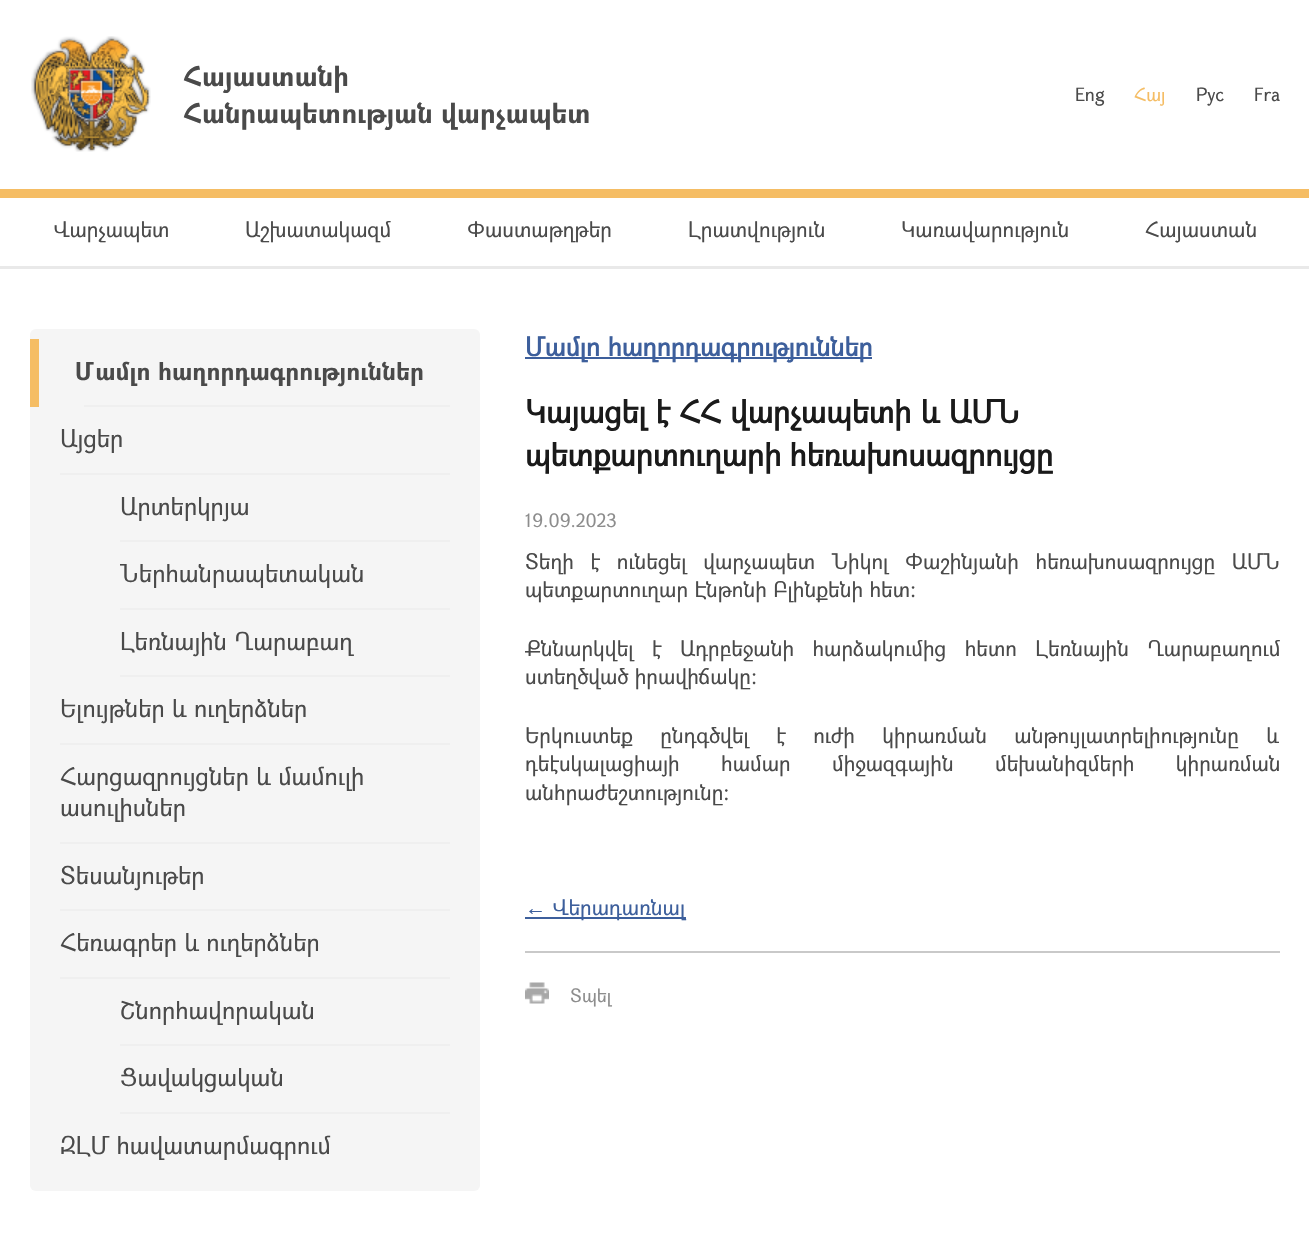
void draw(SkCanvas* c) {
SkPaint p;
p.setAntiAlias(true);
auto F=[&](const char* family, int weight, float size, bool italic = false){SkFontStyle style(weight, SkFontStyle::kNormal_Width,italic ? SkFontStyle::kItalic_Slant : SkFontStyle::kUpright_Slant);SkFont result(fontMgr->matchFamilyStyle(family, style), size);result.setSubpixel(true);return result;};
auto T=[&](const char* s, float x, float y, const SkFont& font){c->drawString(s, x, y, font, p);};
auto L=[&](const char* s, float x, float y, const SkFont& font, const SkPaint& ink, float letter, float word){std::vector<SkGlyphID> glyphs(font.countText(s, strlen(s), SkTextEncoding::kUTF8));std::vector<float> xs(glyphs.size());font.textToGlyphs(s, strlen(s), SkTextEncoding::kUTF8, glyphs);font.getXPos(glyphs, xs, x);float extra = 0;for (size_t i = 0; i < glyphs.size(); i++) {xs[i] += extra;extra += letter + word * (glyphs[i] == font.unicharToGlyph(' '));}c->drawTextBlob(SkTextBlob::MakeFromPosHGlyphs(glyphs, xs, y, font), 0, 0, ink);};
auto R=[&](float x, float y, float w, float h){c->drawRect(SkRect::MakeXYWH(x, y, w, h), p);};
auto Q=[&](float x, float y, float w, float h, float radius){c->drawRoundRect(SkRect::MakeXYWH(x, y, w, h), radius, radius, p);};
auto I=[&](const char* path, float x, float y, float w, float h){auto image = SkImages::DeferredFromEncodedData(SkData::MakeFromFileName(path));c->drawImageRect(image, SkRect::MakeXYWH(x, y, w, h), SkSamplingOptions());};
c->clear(0xffffffff);
p.setColor(0xfff5bd64);
R(0,189,1309,9);
I("1.png",31,36,120,116);
auto f1 = F("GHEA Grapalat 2",700,27);
p.setColor(0xff4a4a4a);
T("Հայաստանի",183,86,f1);
T("Հանրապետության վարչապետ",183,123,f1);
auto f2 = F("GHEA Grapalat",400,18);
T("Eng",1075,101,f2);
p.setColor(0xfff5bd64);
T("Հայ",1134,101,f2);
p.setColor(0xff4a4a4a);
T("Рус",1196,101,f2);
T("Fra",1254,101,f2);
p.setColor(0xffe9e9e9);
R(0,266,1309,3);
auto f3 = F("GHEA Grapalat",400,21);
p.setColor(0xff4a4a4a);
T("Վարչապետ",53,237,f3);
T("Աշխատակազմ",245,237,f3);
T("Փաստաթղթեր",467,237,f3);
T("Լրատվություն",688,237,f3);
T("Կառավարություն",901,237,f3);
T("Հայաստան",1145,237,f3);
p.setColor(0xfff5f5f5);
Q(30,329,450,862,6);
p.setColor(0xfff5bd64);
R(30,339,9,68);
auto f4 = F("GHEA Grapalat 2",700,24);
p.setColor(0xff4a4a4a);
T("Մամլո հաղորդագրություններ",75,380,f4);
p.setColor(0xffefefef);
R(84,405,366,2);
auto f5 = F("GHEA Grapalat",400,24);
p.setColor(0xff4a4a4a);
T("Այցեր",60,447,f5);
p.setColor(0xffefefef);
R(60,473,390,2);
p.setColor(0xff4a4a4a);
T("Արտերկրյա",120,515,f5);
p.setColor(0xffefefef);
R(120,540,330,2);
p.setColor(0xff4a4a4a);
T("Ներհանրապետական",120,582,f5);
p.setColor(0xffefefef);
R(120,608,330,2);
p.setColor(0xff4a4a4a);
T("Լեռնային Ղարաբաղ",120,650,f5);
p.setColor(0xffefefef);
R(120,675,330,2);
p.setColor(0xff4a4a4a);
T("Ելույթներ և ուղերձներ",60,717,f5);
p.setColor(0xffefefef);
R(60,743,390,2);
p.setColor(0xff4a4a4a);
T("Հարցազրույցներ և մամուլի",60,785,f5);
T("ասուլիսներ",60,816,f5);
p.setColor(0xffefefef);
R(60,842,390,2);
p.setColor(0xff4a4a4a);
T("Տեսանյութեր",60,884,f5);
p.setColor(0xffefefef);
R(60,909,390,2);
p.setColor(0xff4a4a4a);
T("Հեռագրեր և ուղերձներ",60,951,f5);
p.setColor(0xffefefef);
R(60,977,390,2);
p.setColor(0xff4a4a4a);
T("Շնորհավորական",120,1019,f5);
p.setColor(0xffefefef);
R(120,1044,330,2);
p.setColor(0xff4a4a4a);
T("Ցավակցական",120,1086,f5);
p.setColor(0xffefefef);
R(120,1112,330,2);
p.setColor(0xff4a4a4a);
T("ԶԼՄ հավատարմագրում",60,1154,f5);
p.setColor(0xff3d5f9c);
R(525,357,347,2);
auto f6 = F("GHEA Grapalat",700,25.25);
T("Մամլո հաղորդագրություններ",525,356,f6);
auto f7 = F("GHEA Grapalat",700,30.8);
p.setColor(0xff1a1a1a);
T("Կայացել է ՀՀ վարչապետի և ԱՄՆ",525,423,f7);
L("պետքարտուղարի հեռախոսազրույցը",525,466,f7,p,0,-1);
p.setColor(0xff8d8d8d);
T("19.09.2023",525,527,f2);
p.setColor(0xff4a4a4a);
L("Տեղի է ունեցել վարչապետ Նիկոլ Փաշինյանի հեռախոսազրույցը ԱՄՆ",525,569,f3,p,0,10.25);
T("պետքարտուղար Էնթոնի Բլինքենի հետ:",525,597,f3);
L("Քննարկվել է Ադրբեջանի հարձակումից հետո Լեռնային Ղարաբաղում",525,656,f3,p,0,12);
T("ստեղծված իրավիճակը:",525,684,f3);
L("Երկուստեք ընդգծվել է ուժի կիրառման անթույլատրելիությունը և",525,743,f3,p,0,21);
L("դեէսկալացիայի համար միջազգային մեխանիզմերի կիրառման",525,771,f3,p,0,35);
T("անհրաժեշտությունը:",525,800,f3);
auto f8 = F("Liberation Sans",400,21);
p.setColor(0xff3d5f9c);
T("←",525,915,f8);
R(525,917,161,2);
T("Վերադառնալ",552,915,f3);
p.setColor(0xffc9c9c9);
R(525,951,755,2);
I("2.png",525,982,24,22);
p.setColor(0xff8d8d8d);
T("Տպել",570,1002,f2);
}
